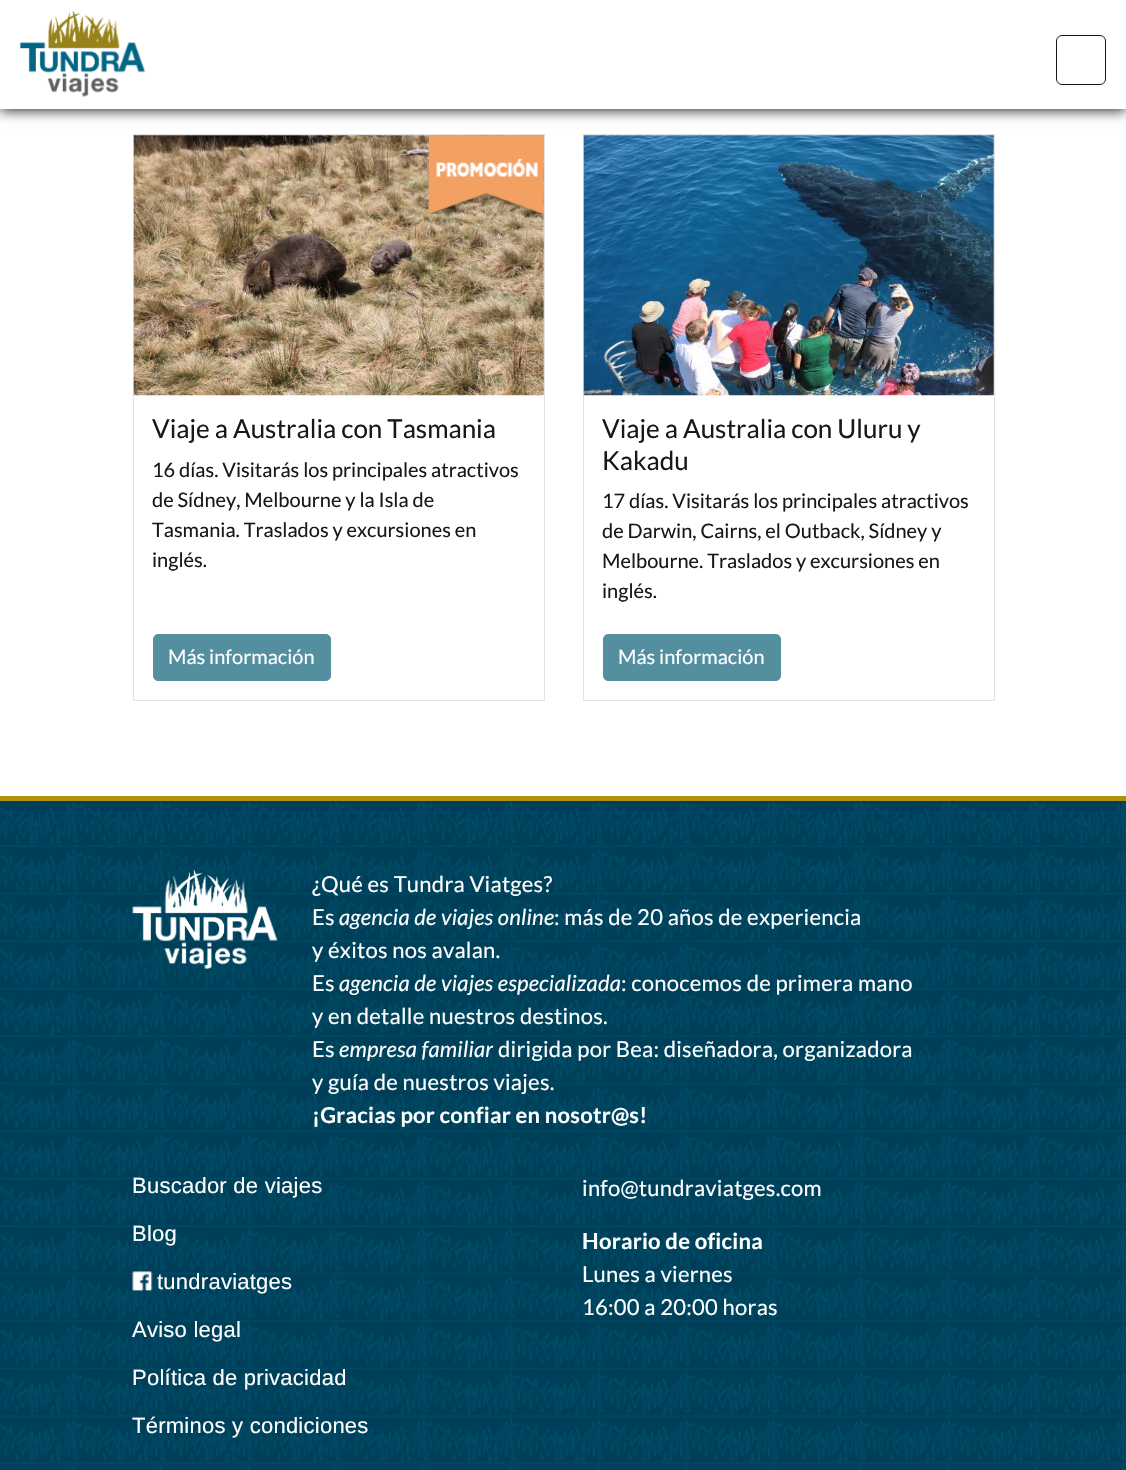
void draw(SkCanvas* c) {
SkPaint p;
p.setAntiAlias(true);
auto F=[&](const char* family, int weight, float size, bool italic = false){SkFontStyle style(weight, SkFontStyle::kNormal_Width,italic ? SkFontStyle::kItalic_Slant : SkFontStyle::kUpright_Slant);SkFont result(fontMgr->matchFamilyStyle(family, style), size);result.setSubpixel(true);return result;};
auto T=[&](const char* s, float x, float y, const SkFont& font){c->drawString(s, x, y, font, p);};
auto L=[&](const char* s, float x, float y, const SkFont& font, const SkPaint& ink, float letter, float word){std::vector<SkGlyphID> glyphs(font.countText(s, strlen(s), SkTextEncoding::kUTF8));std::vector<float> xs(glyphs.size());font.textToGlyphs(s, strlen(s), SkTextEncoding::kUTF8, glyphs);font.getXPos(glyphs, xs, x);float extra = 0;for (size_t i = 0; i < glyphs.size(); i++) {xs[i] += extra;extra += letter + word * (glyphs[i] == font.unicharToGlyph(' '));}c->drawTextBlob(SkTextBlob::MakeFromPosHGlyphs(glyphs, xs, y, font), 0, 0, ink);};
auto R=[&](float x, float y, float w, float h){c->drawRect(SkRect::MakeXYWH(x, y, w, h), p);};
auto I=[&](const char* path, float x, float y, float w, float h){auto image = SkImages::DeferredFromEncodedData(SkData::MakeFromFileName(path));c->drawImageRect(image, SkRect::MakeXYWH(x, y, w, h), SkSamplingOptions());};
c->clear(0xffffffff);
p.setColor(0xcc000000);
p.setMaskFilter(SkMaskFilter::MakeBlur(kNormal_SkBlurStyle, 6));
c->drawRect(SkRect::MakeXYWH(0,3,1126,108),p);
p.setMaskFilter(nullptr);
p.setColor(0xffffffff);
R(0,0,1126,109);
I("1.png",20,11,126,86);
p.setStroke(true);
p.setStrokeWidth(1);
p.setColor(0xff1a171b);
c->drawRoundRect(SkRect::MakeXYWH(1056.5,35.5,49,49),5.5,5.5,p);
p.setColor(0xffe2e2e2);
c->drawRect(SkRect::MakeXYWH(133.5,134.5,411,566),p);
I("2.png",133,135,411,261);
I("3.png",428,135,116,79);
auto f1 = F("Lato",400,26);
p.setStroke(false);
p.setColor(0xff1a171b);
T("Viaje a Australia con Tasmania",152,438,f1);
auto f2 = F("Lato",400,20);
T("16 días. Visitarás los principales atractivos",152,477,f2);
T("de Sídney, Melbourne y la Isla de",152,507,f2);
T("Tasmania. Traslados y excursiones en",152,537,f2);
T("inglés.",152,567,f2);
p.setColor(0xff538f9e);
c->drawRoundRect(SkRect::MakeXYWH(153.5,634.5,177,46),4.5,4.5,p);
p.setStroke(true);
c->drawRoundRect(SkRect::MakeXYWH(153.5,634.5,177,46),4.5,4.5,p);
p.setStroke(false);
p.setColor(0xffffffff);
T("Más información",168,664,f2);
p.setStroke(true);
p.setColor(0xffe2e2e2);
c->drawRect(SkRect::MakeXYWH(583.5,134.5,411,566),p);
I("4.png",583,135,411,261);
p.setStroke(false);
p.setColor(0xff1a171b);
T("Viaje a Australia con Uluru y",602,438,f1);
T("Kakadu",602,470,f1);
T("17 días. Visitarás los principales atractivos",602,508,f2);
T("de Darwin, Cairns, el Outback, Sídney y",602,538,f2);
T("Melbourne. Traslados y excursiones en",602,568,f2);
T("inglés.",602,598,f2);
p.setColor(0xff538f9e);
c->drawRoundRect(SkRect::MakeXYWH(603.5,634.5,177,46),4.5,4.5,p);
p.setStroke(true);
c->drawRoundRect(SkRect::MakeXYWH(603.5,634.5,177,46),4.5,4.5,p);
p.setStroke(false);
p.setColor(0xffffffff);
T("Más información",618,664,f2);
p.setColor(0xff003f59);
R(0,801,1126,669);
I("5.png",0,801,1126,669);
p.setColor(0xffb1910a);
R(0,796,1126,5);
I("6.png",132,869,146,100);
auto f3 = F("Lato",400,22);
p.setColor(0xffffffff);
L("¿Qué es Tundra Viatges?",312,892,f3,p,.25,0);
L("Es",312,925,f3,p,.25,0);
auto f4 = F("Lato",400,22,true);
L("agencia de viajes online",339,925,f4,p,.25,0);
L(": más de 20 años de experiencia",554,925,f3,p,.25,0);
L("y éxitos nos avalan.",312,958,f3,p,.25,0);
L("Es",312,991,f3,p,.25,0);
L("agencia de viajes especializada",339,991,f4,p,.25,0);
L(": conocemos de primera mano",621,991,f3,p,.25,0);
L("y en detalle nuestros destinos.",312,1024,f3,p,.25,0);
L("Es",312,1057,f3,p,.25,0);
L("empresa familiar",339,1057,f4,p,.25,0);
L("dirigida por Bea: diseñadora, organizadora",498,1057,f3,p,.25,0);
L("y guía de nuestros viajes.",312,1090,f3,p,.25,0);
auto f5 = F("Lato",700,22);
L("¡Gracias por confiar en nosotr@s!",312,1123,f5,p,.25,0);
auto f6 = F("Liberation Sans",400,22);
L("Buscador de viajes",132,1193,f6,p,.25,0);
L("Blog",132,1241,f6,p,.25,0);
I("7.png",132,1271,21,21);
L("tundraviatges",157,1289,f6,p,.25,0);
L("Aviso legal",132,1337,f6,p,.25,0);
L("Política de privacidad",132,1385,f6,p,.25,0);
L("Términos y condiciones",132,1433,f6,p,.25,0);
L("info@tundraviatges.com",582,1196,f3,p,.25,0);
L("Horario de oficina",582,1249,f5,p,.25,0);
L("Lunes a viernes",582,1282,f3,p,.25,0);
L("16:00 a 20:00 horas",582,1315,f3,p,.25,0);
}
